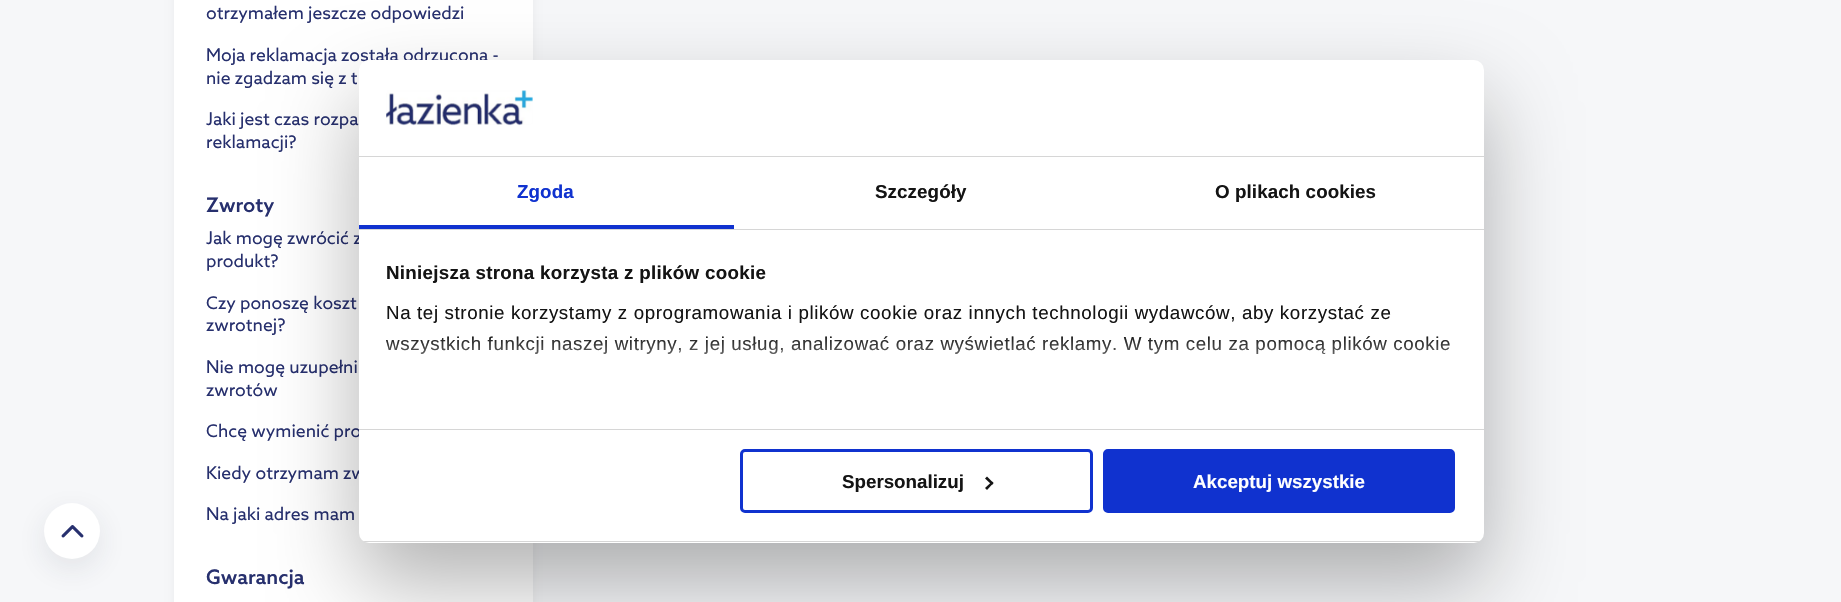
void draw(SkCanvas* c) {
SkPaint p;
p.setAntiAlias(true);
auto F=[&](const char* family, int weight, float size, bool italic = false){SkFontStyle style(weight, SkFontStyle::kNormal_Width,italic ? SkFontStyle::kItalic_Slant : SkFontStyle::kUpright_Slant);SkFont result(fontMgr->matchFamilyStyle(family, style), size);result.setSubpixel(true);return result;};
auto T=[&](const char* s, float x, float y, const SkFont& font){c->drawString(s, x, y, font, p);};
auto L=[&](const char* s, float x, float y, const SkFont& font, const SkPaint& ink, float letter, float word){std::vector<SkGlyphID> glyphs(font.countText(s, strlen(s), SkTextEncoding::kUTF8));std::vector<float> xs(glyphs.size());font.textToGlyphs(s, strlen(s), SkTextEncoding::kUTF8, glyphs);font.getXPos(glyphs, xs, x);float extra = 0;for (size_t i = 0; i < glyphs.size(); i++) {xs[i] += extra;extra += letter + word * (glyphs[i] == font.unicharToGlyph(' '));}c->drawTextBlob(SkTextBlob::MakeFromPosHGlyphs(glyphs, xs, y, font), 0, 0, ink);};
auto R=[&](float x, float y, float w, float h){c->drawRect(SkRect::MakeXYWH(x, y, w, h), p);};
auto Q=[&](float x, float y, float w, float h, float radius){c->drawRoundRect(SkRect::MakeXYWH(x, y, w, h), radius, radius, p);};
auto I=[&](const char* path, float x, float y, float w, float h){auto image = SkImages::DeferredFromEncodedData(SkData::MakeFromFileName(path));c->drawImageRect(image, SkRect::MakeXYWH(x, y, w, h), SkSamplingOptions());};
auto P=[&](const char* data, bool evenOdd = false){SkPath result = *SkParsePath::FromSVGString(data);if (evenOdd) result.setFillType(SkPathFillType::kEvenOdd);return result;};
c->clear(0xfff6f7f9);
p.setColor(0x0d000000);
p.setMaskFilter(SkMaskFilter::MakeBlur(kNormal_SkBlurStyle, 4.5));
c->drawRoundRect(SkRect::MakeXYWH(174,-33,359,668),19,19,p);
p.setMaskFilter(nullptr);
p.setColor(0xffffffff);
R(174,0,359,602);
auto f1 = F("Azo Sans",400,17.5);
p.setColor(0xff27306e);
T("otrzymałem jeszcze odpowiedzi",206,19,f1);
T("Moja reklamacja została odrzucona -",206,61,f1);
T("nie zgadzam się z t",206,84,f1);
T("Jaki jest czas rozpa",206,125,f1);
T("reklamacji?",206,148,f1);
auto f2 = F("Azo Sans",500,20);
T("Zwroty",206,212,f2);
T("Jak mogę zwrócić z",206,244,f1);
T("produkt?",206,267,f1);
T("Czy ponoszę koszt",206,309,f1);
T("zwrotnej?",206,331,f1);
T("Nie mogę uzupełni",206,373,f1);
T("zwrotów",206,396,f1);
T("Chcę wymienić pro",206,437,f1);
T("Kiedy otrzymam zw",206,479,f1);
T("Na jaki adres mam",206,520,f1);
T("Gwarancja",206,584,f2);
p.setColor(0x4d000000);
p.setMaskFilter(SkMaskFilter::MakeBlur(kNormal_SkBlurStyle, 42.5));
c->drawRoundRect(SkRect::MakeXYWH(359,100,1125,483),10,10,p);
p.setMaskFilter(nullptr);
p.setColor(0xffffffff);
Q(359,60,1125,483,10);
p.setColor(0xffd6d6d6);
R(359,156,1125,1);
I("1.png",386,90,147,36);
R(359,229,1125,1);
p.setColor(0xff1032cf);
R(359,225,375,4);
auto f3 = F("Liberation Sans",700,18.75);
L("Zgoda",517,198,f3,p,.1,0);
p.setColor(0xff141414);
L("Szczegóły",875,198,f3,p,.1,0);
L("O plikach cookies",1215,198,f3,p,.1,0);
p.setColor(0xffd6d6d6);
R(359,429,1125,1);
p.setColor(0xff141414);
L("Niniejsza strona korzysta z plików cookie",386,279,f3,p,.3,0);
auto f4 = F("Liberation Sans",400,18.75);
L("Na tej stronie korzystamy z oprogramowania i plików cookie oraz innych technologii wydawców, aby korzystać ze",386,319,f4,p,.62,0);
L("wszystkich funkcji naszej witryny, z jej usług, analizować oraz wyświetlać reklamy. W tym celu za pomocą plików cookie",386,350,f4,p,.62,0);
{
const SkColor colors[] = {0xffffffff,0xccffffff,0x00ffffff};
const float stops[] = {0,.5,1};
const SkPoint ends[] = {{908,429}, {908,335}};
p.setShader(SkGradientShader::MakeLinear(ends, colors, stops, 3, SkTileMode::kClamp));
p.setAlpha(255);
}
R(386,336,1065,18);
c->save();
c->clipPath(P("M369 60h1105c5.5 0 10 4.5 10 10v463c0 5.5-4.5 10-10 10h-1105c-5.5 0-10-4.5-10-10v-463c0-5.5 4.5-10 10-10z"),true);
p.setShader(nullptr);
p.setColor(0xffd6d6d6);
R(359,541,1125,1);
c->restore();
p.setStroke(true);
p.setStrokeWidth(3);
p.setColor(0xff1032cf);
c->drawRoundRect(SkRect::MakeXYWH(741.5,450.5,350,61),3.5,3.5,p);
p.setStroke(false);
p.setColor(0xff141414);
T("Spersonalizuj",842,488,f3);
c->drawPath(P("M987 476.5l6.5 6.5l-1.5 2l-7-6.5z"),p);
c->drawPath(P("M992 481.5l1.5 1.5l-6.5 7l-2-2z"),p);
p.setColor(0xff1032cf);
c->drawRoundRect(SkRect::MakeXYWH(1104.5,450.5,349,61),3.5,3.5,p);
p.setStroke(true);
c->drawRoundRect(SkRect::MakeXYWH(1104.5,450.5,349,61),3.5,3.5,p);
p.setStroke(false);
p.setColor(0xffffffff);
T("Akceptuj wszystkie",1193,488,f3);
p.setColor(0x1a263248);
p.setMaskFilter(SkMaskFilter::MakeBlur(kNormal_SkBlurStyle, 15));
c->drawRoundRect(SkRect::MakeXYWH(44,513,56,56),28,28,p);
p.setMaskFilter(nullptr);
p.setColor(0xffffffff);
c->drawCircle(72,531,28,p);
I("2.png",61,525,23,13);
}
